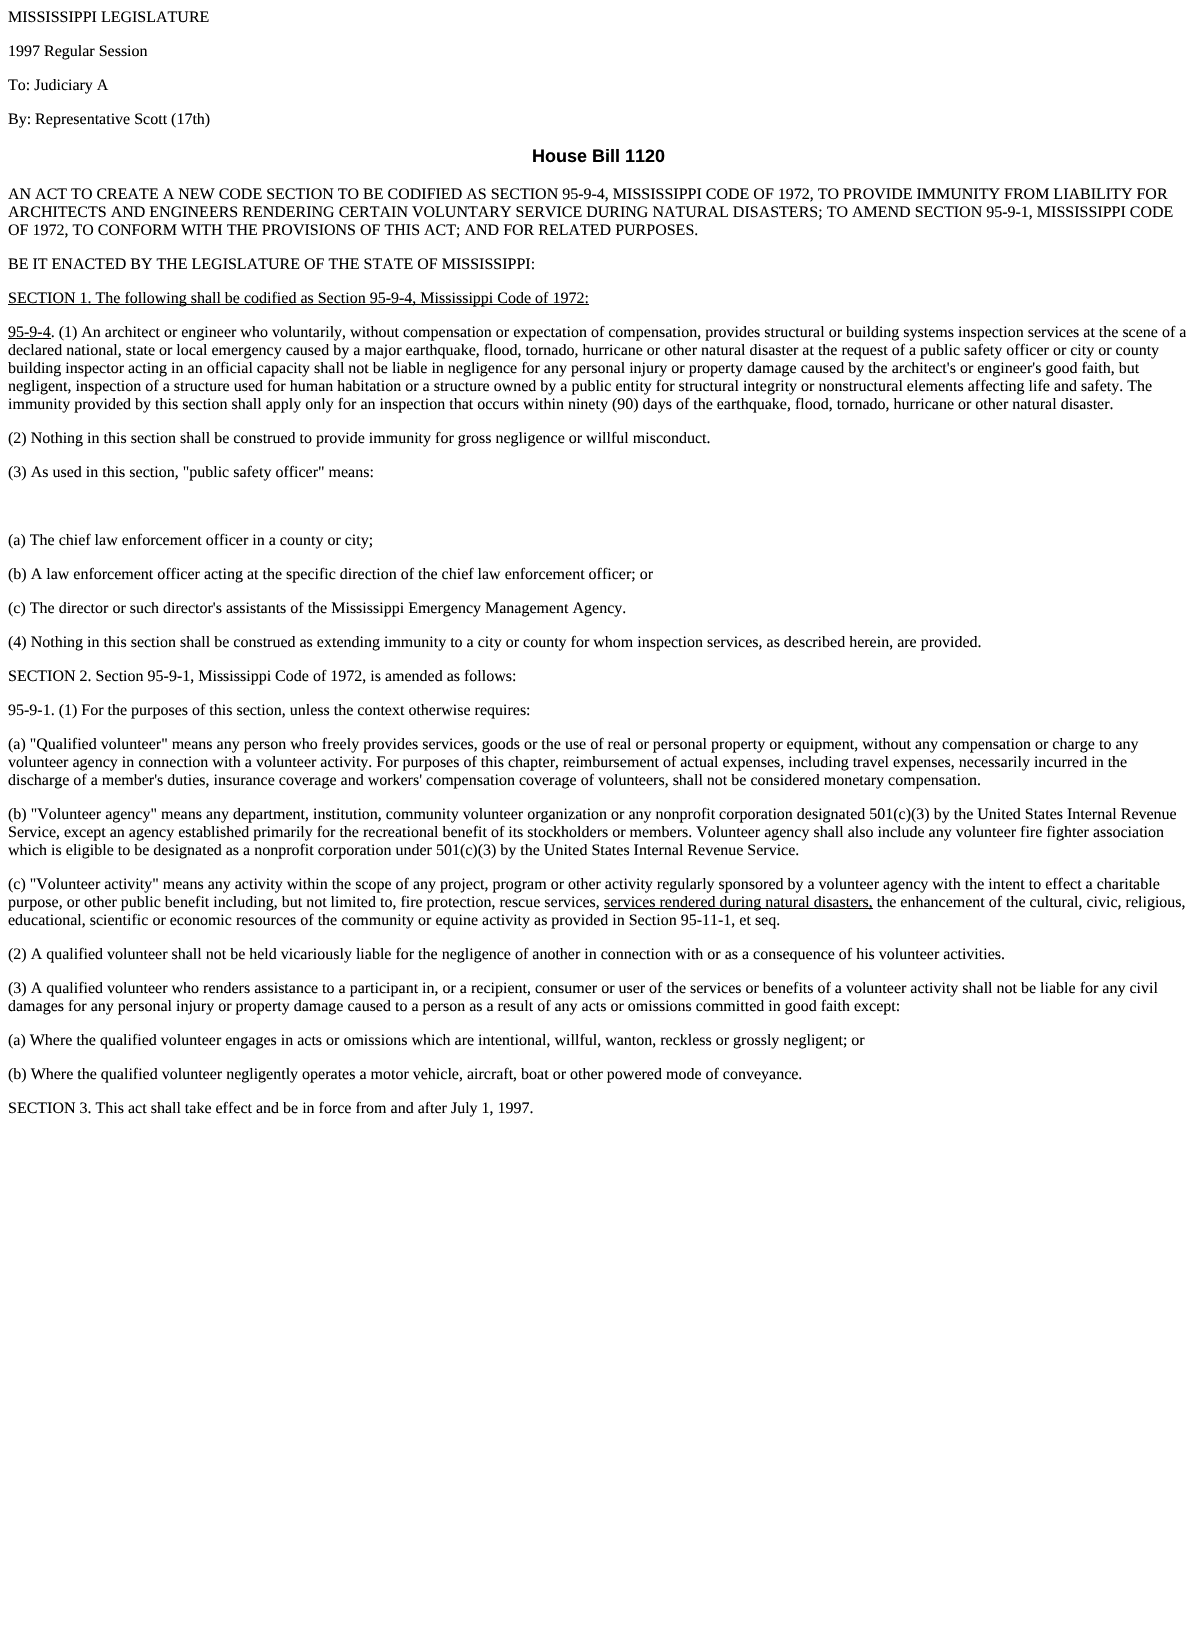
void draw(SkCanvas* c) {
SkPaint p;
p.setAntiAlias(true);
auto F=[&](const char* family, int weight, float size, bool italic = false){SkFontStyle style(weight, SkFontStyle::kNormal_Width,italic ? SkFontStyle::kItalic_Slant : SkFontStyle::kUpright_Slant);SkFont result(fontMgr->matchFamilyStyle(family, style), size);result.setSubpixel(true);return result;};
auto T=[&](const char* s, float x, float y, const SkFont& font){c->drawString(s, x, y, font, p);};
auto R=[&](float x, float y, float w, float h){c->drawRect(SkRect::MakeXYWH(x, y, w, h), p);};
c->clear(0xffffffff);
auto f1 = F("Liberation Serif",400,16);
p.setColor(0xff000000);
T("MISSISSIPPI LEGISLATURE",8,22,f1);
T("1997 Regular Session",8,56,f1);
T("To: Judiciary A",8,90,f1);
T("By: Representative Scott (17th)",8,124,f1);
auto f2 = F("Liberation Sans",700,18);
T("House Bill 1120",532,162,f2);
T("AN ACT TO CREATE A NEW CODE SECTION TO BE CODIFIED AS SECTION 95-9-4, MISSISSIPPI CODE OF 1972, TO PROVIDE IMMUNITY FROM LIABILITY FOR",8,199,f1);
T("ARCHITECTS AND ENGINEERS RENDERING CERTAIN VOLUNTARY SERVICE DURING NATURAL DISASTERS; TO AMEND SECTION 95-9-1, MISSISSIPPI CODE",8,217,f1);
T("OF 1972, TO CONFORM WITH THE PROVISIONS OF THIS ACT; AND FOR RELATED PURPOSES.",8,235,f1);
T("BE IT ENACTED BY THE LEGISLATURE OF THE STATE OF MISSISSIPPI:",8,269,f1);
R(8,304,581,1);
T("SECTION 1. The following shall be codified as Section 95-9-4, Mississippi Code of 1972:",8,303,f1);
R(8,338,43,1);
T("95-9-4. (1) An architect or engineer who voluntarily, without compensation or expectation of compensation, provides structural or building systems inspection services at the scene of a",8,337,f1);
T("declared national, state or local emergency caused by a major earthquake, flood, tornado, hurricane or other natural disaster at the request of a public safety officer or city or county",8,355,f1);
T("building inspector acting in an official capacity shall not be liable in negligence for any personal injury or property damage caused by the architect's or engineer's good faith, but",8,373,f1);
T("negligent, inspection of a structure used for human habitation or a structure owned by a public entity for structural integrity or nonstructural elements affecting life and safety. The",8,391,f1);
T("immunity provided by this section shall apply only for an inspection that occurs within ninety (90) days of the earthquake, flood, tornado, hurricane or other natural disaster.",8,409,f1);
T("(2) Nothing in this section shall be construed to provide immunity for gross negligence or willful misconduct.",8,443,f1);
T("(3) As used in this section, \"public safety officer\" means:",8,477,f1);
T("(a) The chief law enforcement officer in a county or city;",8,545,f1);
T("(b) A law enforcement officer acting at the specific direction of the chief law enforcement officer; or",8,579,f1);
T("(c) The director or such director's assistants of the Mississippi Emergency Management Agency.",8,613,f1);
T("(4) Nothing in this section shall be construed as extending immunity to a city or county for whom inspection services, as described herein, are provided.",8,647,f1);
T("SECTION 2. Section 95-9-1, Mississippi Code of 1972, is amended as follows:",8,681,f1);
T("95-9-1. (1) For the purposes of this section, unless the context otherwise requires:",8,715,f1);
T("(a) \"Qualified volunteer\" means any person who freely provides services, goods or the use of real or personal property or equipment, without any compensation or charge to any",8,749,f1);
T("volunteer agency in connection with a volunteer activity. For purposes of this chapter, reimbursement of actual expenses, including travel expenses, necessarily incurred in the",8,767,f1);
T("discharge of a member's duties, insurance coverage and workers' compensation coverage of volunteers, shall not be considered monetary compensation.",8,785,f1);
T("(b) \"Volunteer agency\" means any department, institution, community volunteer organization or any nonprofit corporation designated 501(c)(3) by the United States Internal Revenue",8,819,f1);
T("Service, except an agency established primarily for the recreational benefit of its stockholders or members. Volunteer agency shall also include any volunteer fire fighter association",8,837,f1);
T("which is eligible to be designated as a nonprofit corporation under 501(c)(3) by the United States Internal Revenue Service.",8,855,f1);
T("(c) \"Volunteer activity\" means any activity within the scope of any project, program or other activity regularly sponsored by a volunteer agency with the intent to effect a charitable",8,889,f1);
T("purpose, or other public benefit including, but not limited to, fire protection, rescue services,",8,907,f1);
R(604,908,269,1);
T("services rendered during natural disasters, the enhancement of the cultural, civic, religious,",604,907,f1);
T("educational, scientific or economic resources of the community or equine activity as provided in Section 95-11-1, et seq.",8,925,f1);
T("(2) A qualified volunteer shall not be held vicariously liable for the negligence of another in connection with or as a consequence of his volunteer activities.",8,959,f1);
T("(3) A qualified volunteer who renders assistance to a participant in, or a recipient, consumer or user of the services or benefits of a volunteer activity shall not be liable for any civil",8,993,f1);
T("damages for any personal injury or property damage caused to a person as a result of any acts or omissions committed in good faith except:",8,1011,f1);
T("(a) Where the qualified volunteer engages in acts or omissions which are intentional, willful, wanton, reckless or grossly negligent; or",8,1045,f1);
T("(b) Where the qualified volunteer negligently operates a motor vehicle, aircraft, boat or other powered mode of conveyance.",8,1079,f1);
T("SECTION 3. This act shall take effect and be in force from and after July 1, 1997.",8,1113,f1);
}
